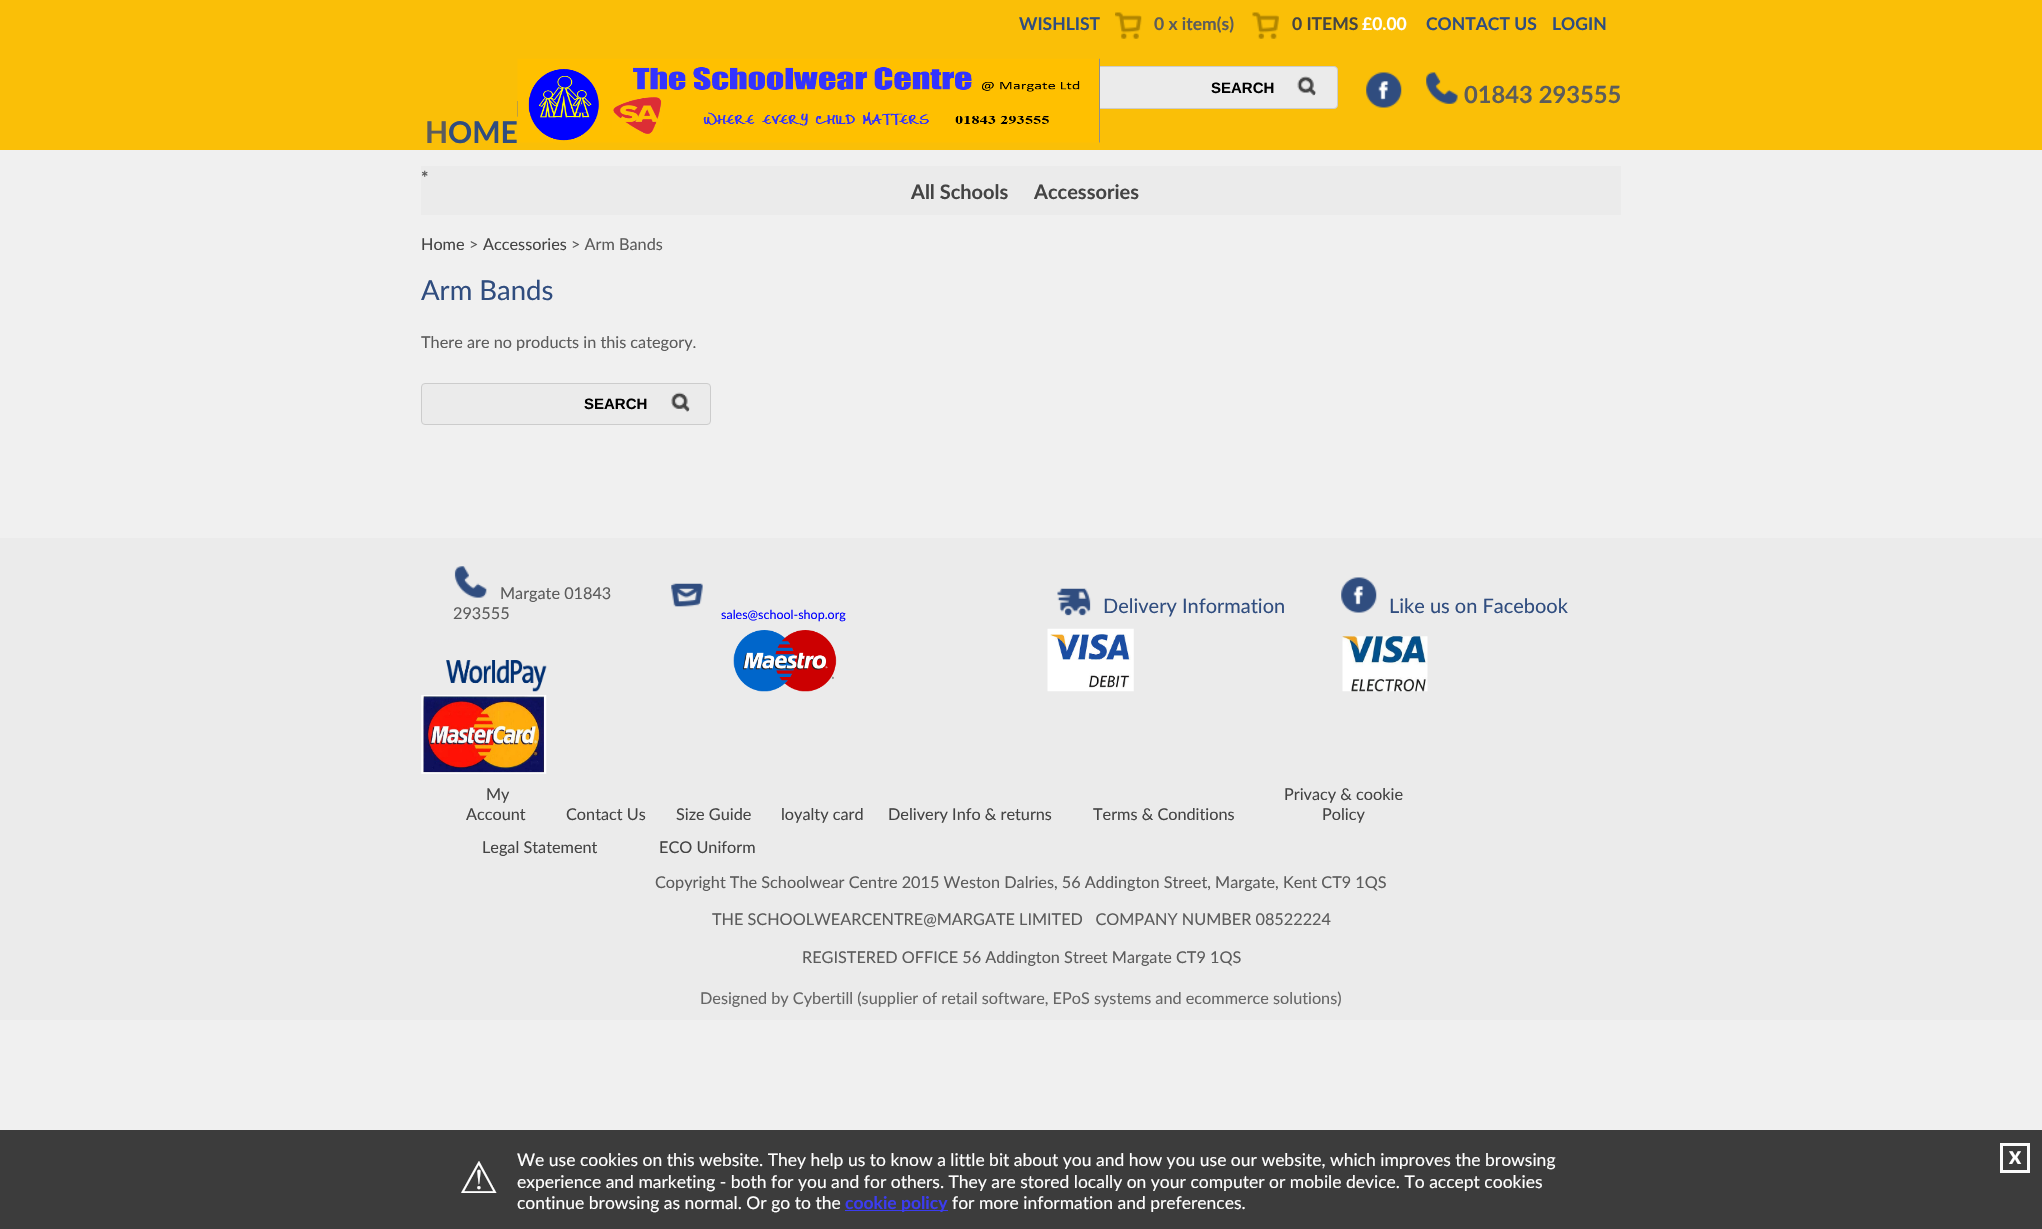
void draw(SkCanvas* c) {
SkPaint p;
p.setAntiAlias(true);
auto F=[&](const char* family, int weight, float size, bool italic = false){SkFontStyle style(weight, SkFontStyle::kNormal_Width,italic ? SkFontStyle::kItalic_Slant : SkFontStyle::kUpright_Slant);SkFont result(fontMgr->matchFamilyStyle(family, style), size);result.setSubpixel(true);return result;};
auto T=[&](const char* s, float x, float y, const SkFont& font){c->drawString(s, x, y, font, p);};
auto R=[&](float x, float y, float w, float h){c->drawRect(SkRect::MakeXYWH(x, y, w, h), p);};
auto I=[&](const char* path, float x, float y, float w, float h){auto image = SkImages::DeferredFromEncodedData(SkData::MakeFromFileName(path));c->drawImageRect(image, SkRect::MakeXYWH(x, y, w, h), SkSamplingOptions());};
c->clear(0xfff0f0f0);
p.setColor(0xfffabf07);
R(0,0,2042,150);
auto f1 = F("Lato",700,17.5);
p.setColor(0xff304d7f);
T("WISHLIST",1019,30,f1);
I("1.png",1115,12,27,27);
p.setColor(0xff5c5c5c);
T("0 x item(s)",1154,30,f1);
I("2.png",1252,12,27,27);
p.setColor(0xff444444);
T("0 ITEMS",1292,30,f1);
p.setColor(0xffffffff);
T("£0.00",1362,30,f1);
p.setColor(0xff304d7f);
T("CONTACT US",1426,30,f1);
T("LOGIN",1552,30,f1);
p.setColor(0xffebebeb);
c->drawRoundRect(SkRect::MakeXYWH(1048.5,66.5,289,42),3.5,3.5,p);
p.setStroke(true);
p.setStrokeWidth(1);
p.setColor(0xffcccccc);
c->drawRoundRect(SkRect::MakeXYWH(1048.5,66.5,289,42),3.5,3.5,p);
auto f2 = F("Liberation Sans",700,15);
p.setStroke(false);
p.setColor(0xff000000);
T("SEARCH",1211,93,f2);
I("3.png",1297,76,19,20);
I("4.png",1366,72,36,36);
I("5.png",1426,72,32,32);
auto f3 = F("Lato",700,23.75);
p.setColor(0xff5c5c5c);
T("01843 293555",1464,103,f3);
auto f4 = F("Lato",700,30);
T("H",425,143,f4);
p.setColor(0xff304d7f);
T("OME",448,143,f4);
I("6.png",517,58,583,85);
p.setColor(0xffebebeb);
R(421,166,1200,49);
p.setColor(0xff5c5c5c);
T("*",421,184,f1);
auto f5 = F("Lato",700,20);
p.setColor(0xff444444);
T("All Schools",911,199,f5);
T("Accessories",1034,199,f5);
auto f6 = F("Lato",400,16.25);
T("Home",421,250,f6);
p.setColor(0xff5c5c5c);
T(">",469,250,f6);
p.setColor(0xff444444);
T("Accessories",483,250,f6);
p.setColor(0xff5c5c5c);
T("> Arm Bands",571,250,f6);
auto f7 = F("Lato",400,27.5);
p.setColor(0xff304d7f);
T("Arm Bands",421,300,f7);
p.setColor(0xff5c5c5c);
T("There are no products in this category.",421,348,f6);
p.setColor(0xffebebeb);
c->drawRoundRect(SkRect::MakeXYWH(421.5,383.5,289,41),3.5,3.5,p);
p.setStroke(true);
p.setColor(0xffcccccc);
c->drawRoundRect(SkRect::MakeXYWH(421.5,383.5,289,41),3.5,3.5,p);
p.setStroke(false);
p.setColor(0xff000000);
T("SEARCH",584,409,f2);
I("7.png",671,392,19,20);
p.setColor(0xffebebeb);
R(0,538,2042,482);
I("8.png",454,566,33,32);
p.setColor(0xff5c5c5c);
T("Margate 01843",500,599,f6);
T("293555",453,619,f6);
I("9.png",1057,588,34,28);
auto f8 = F("Lato",400,20);
p.setColor(0xff304d7f);
T("Delivery Information",1103,613,f8);
I("10.png",1341,577,36,36);
T("Like us on Facebook",1389,613,f8);
I("11.png",671,583,32,24);
auto f9 = F("Lato",400,12.5);
p.setColor(0xff0000ff);
T("sales@school-shop.org",721,619,f9);
I("12.png",446,660,101,32);
I("13.png",733,630,104,62);
I("14.png",1047,628,87,64);
I("15.png",1342,636,86,56);
I("16.png",421,695,126,79);
p.setColor(0xff444444);
T("My",486,800,f6);
T("Account",466,820,f6);
T("Contact Us",566,820,f6);
T("Size Guide",676,820,f6);
T("loyalty card",781,820,f6);
T("Delivery Info & returns",888,820,f6);
T("Terms & Conditions",1093,820,f6);
T("Privacy & cookie",1284,800,f6);
T("Policy",1322,820,f6);
T("Legal Statement",482,853,f6);
T("ECO Uniform",659,853,f6);
p.setColor(0xff5c5c5c);
T("Copyright The Schoolwear Centre 2015 Weston Dalries, 56 Addington Street, Margate, Kent CT9 1QS",655,888,f6);
T("THE SCHOOLWEARCENTRE@MARGATE LIMITED   COMPANY NUMBER 08522224",712,925,f6);
T("REGISTERED OFFICE 56 Addington Street Margate CT9 1QS",802,963,f6);
p.setColor(0xff666666);
T("Designed by Cybertill (supplier of retail software, EPoS systems and ecommerce solutions)",700,1004,f6);
p.setColor(0xff3c3c3c);
R(0,1130,2042,99);
auto f10 = F("DejaVu Sans",400,44);
p.setColor(0xffffffff);
T("⚠",459,1193,f10);
auto f11 = F("Lato",400,17.5);
T("We use cookies on this website. They help us to know a little bit about you and how you use our website, which improves the browsing",517,1166,f11);
T("experience and marketing - both for you and for others. They are stored locally on your computer or mobile device. To accept cookies",517,1188,f11);
T("continue browsing as normal. Or go to the",517,1209,f11);
p.setColor(0xff3c3cef);
R(845,1210,103,1);
T("cookie policy",845,1209,f1);
p.setColor(0xffffffff);
T("for more information and preferences.",952,1209,f11);
p.setStroke(true);
p.setStrokeWidth(3);
p.setColor(0xfffbfbfb);
c->drawRect(SkRect::MakeXYWH(2001.5,1144.5,27,27),p);
auto f12 = F("Lato",900,17.5);
p.setStroke(false);
p.setColor(0xffffffff);
T("X",2009,1164,f12);
}
